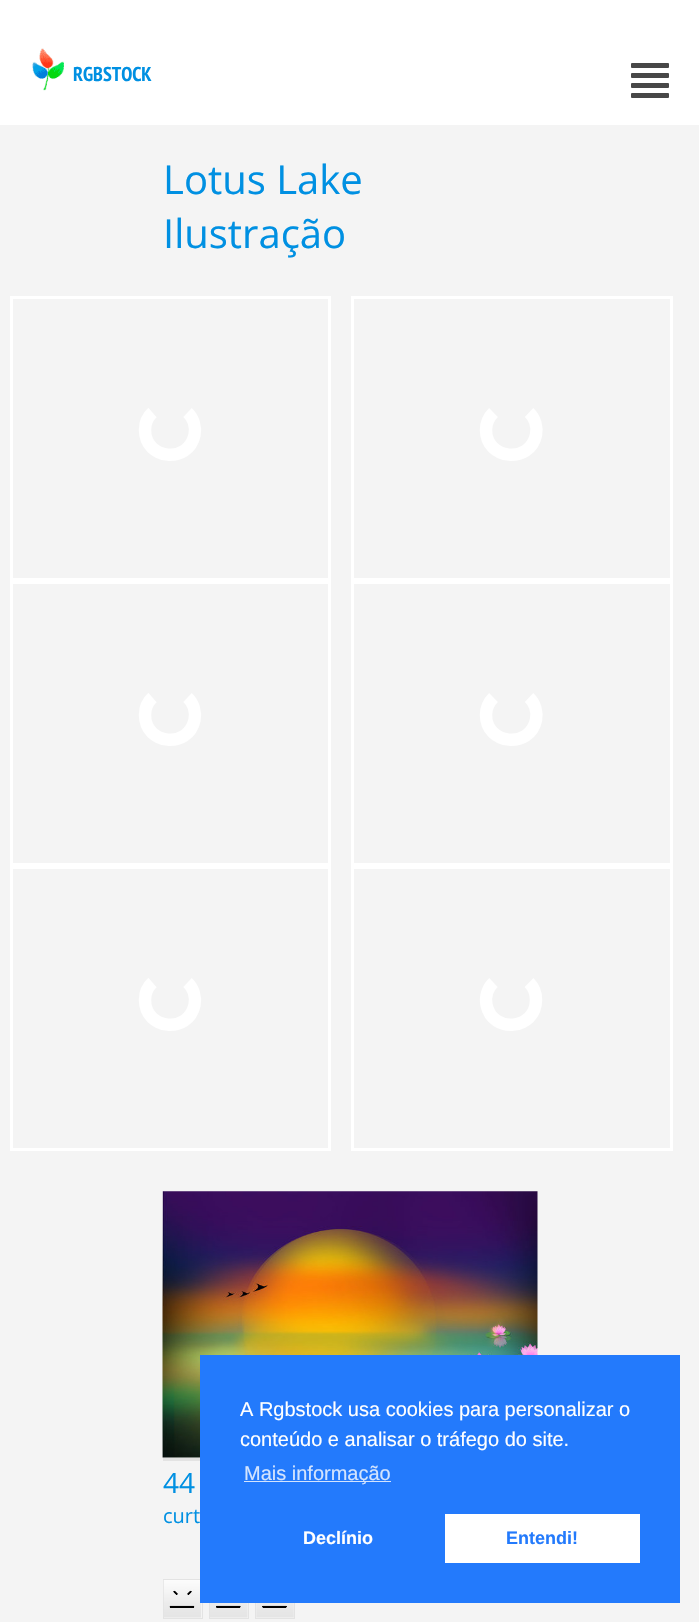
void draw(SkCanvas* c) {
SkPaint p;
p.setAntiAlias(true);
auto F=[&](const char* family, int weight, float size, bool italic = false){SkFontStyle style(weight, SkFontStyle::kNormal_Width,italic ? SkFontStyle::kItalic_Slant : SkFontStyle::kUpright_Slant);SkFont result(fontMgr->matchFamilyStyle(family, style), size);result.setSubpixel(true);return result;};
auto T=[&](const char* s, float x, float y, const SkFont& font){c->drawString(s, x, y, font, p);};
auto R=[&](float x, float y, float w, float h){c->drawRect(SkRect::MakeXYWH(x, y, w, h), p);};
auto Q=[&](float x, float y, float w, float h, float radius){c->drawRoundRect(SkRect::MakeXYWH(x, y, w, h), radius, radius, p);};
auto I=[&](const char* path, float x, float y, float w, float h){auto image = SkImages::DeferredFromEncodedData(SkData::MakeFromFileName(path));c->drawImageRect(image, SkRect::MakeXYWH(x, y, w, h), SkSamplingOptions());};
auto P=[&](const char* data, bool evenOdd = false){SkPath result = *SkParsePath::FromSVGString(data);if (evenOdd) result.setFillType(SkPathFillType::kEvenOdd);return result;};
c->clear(0xfff4f4f4);
p.setColor(0xffffffff);
R(0,0,699,125);
p.setColor(0xff474747);
Q(631,63,38,5,1);
Q(631,73,38,5,1);
Q(631,83,38,5,1);
Q(631,93,38,5,1);
I("1.png",32,48,32,43);
auto f1 = F("PT Sans Narrow",700,20);
p.setColor(0xff0090e2);
T("RGBSTOCK",73,81,f1);
auto f2 = F("Open Sans",400,40);
T("Lotus Lake",163,194,f2);
T("Ilustração",163,248,f2);
p.setStroke(true);
p.setStrokeWidth(3);
p.setColor(0xffffffff);
c->drawRect(SkRect::MakeXYWH(11.5,297.5,318,282),p);
p.setStrokeWidth(12.5);
c->drawPath(P("M187.5 412.5c6 5.5 8.5 14.5 7 22.5c-6 29-49.5 25-49.5-5c0-6.5 2.5-13 7.5-17.5"),p);
p.setStrokeWidth(3);
c->drawRect(SkRect::MakeXYWH(352.5,297.5,319,282),p);
p.setStrokeWidth(12.5);
c->drawPath(P("M529 412.5c6 5.5 8.5 14.5 7 22.5c-6 29-50 25-50-5c0-6.5 3-13 7.5-17.5"),p);
p.setStrokeWidth(3);
c->drawRect(SkRect::MakeXYWH(11.5,582.5,318,282),p);
p.setStrokeWidth(12.5);
c->drawPath(P("M187.5 697.5c6 5.5 8.5 14.5 7 22.5c-6 29-49.5 25-49.5-5c0-6.5 2.5-13 7.5-17.5"),p);
p.setStrokeWidth(3);
c->drawRect(SkRect::MakeXYWH(352.5,582.5,319,282),p);
p.setStrokeWidth(12.5);
c->drawPath(P("M529 697.5c6 5.5 8.5 14.5 7 22.5c-6 29-50 25-50-5c0-6.5 3-13 7.5-17.5"),p);
p.setStrokeWidth(3);
c->drawRect(SkRect::MakeXYWH(11.5,867.5,318,282),p);
p.setStrokeWidth(12.5);
c->drawPath(P("M187.5 982.5c6 5.5 8.5 14.5 7 22.5c-6 29-49.5 25-49.5-5c0-6.5 2.5-13 7.5-17.5"),p);
p.setStrokeWidth(3);
c->drawRect(SkRect::MakeXYWH(352.5,867.5,319,282),p);
p.setStrokeWidth(12.5);
c->drawPath(P("M529 982.5c4.5 4.5 7 11 7 17.5c0 30-43.5 34-49.5 5c-1.5-8 1-17 7-22.5"),p);
p.setStroke(false);
p.setColor(0xffe3e3e3);
R(163,1458,37,3);
I("2.png",162,1191,376,267);
auto f3 = F("Open Sans",400,28);
p.setColor(0xff0090e2);
T("44",163,1493,f3);
auto f4 = F("Open Sans",400,20);
T("curt",163,1523,f4);
p.setStroke(true);
p.setStrokeWidth(1);
p.setColor(0xffe3e3e3);
c->drawRect(SkRect::MakeXYWH(163.5,1579.5,39,39),p);
I("3.png",163,1580,38,38);
c->drawRect(SkRect::MakeXYWH(209.5,1579.5,39,39),p);
I("4.png",210,1603,38,15);
c->drawRect(SkRect::MakeXYWH(255.5,1579.5,39,39),p);
I("5.png",256,1603,38,15);
p.setStroke(false);
p.setColor(0xff237afc);
R(200,1355,480,248);
auto f5 = F("Liberation Sans",400,20);
p.setColor(0xffffffff);
T("A Rgbstock usa cookies para personalizar o",240,1416,f5);
T("conteúdo e analisar o tráfego do site.",240,1446,f5);
p.setColor(0xffd3e4fe);
R(244,1481,147,1);
T("Mais informação",244,1480,f5);
auto f6 = F("Liberation Sans",700,18);
p.setColor(0xffffffff);
T("Declínio",303,1544,f6);
R(445,1514,195,49);
p.setColor(0xff237afc);
T("Entendi!",506,1544,f6);
}
